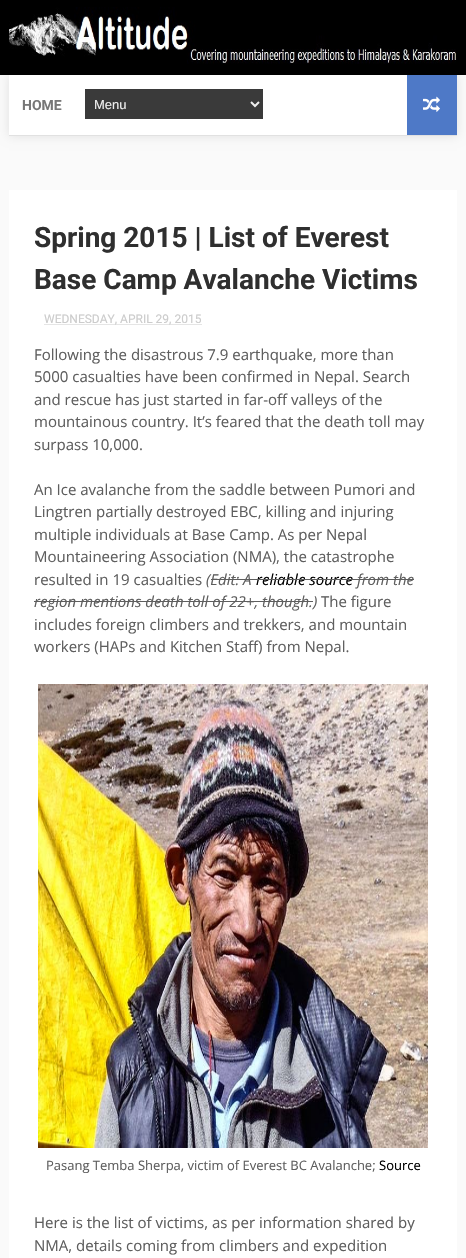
void draw(SkCanvas* c) {
SkPaint p;
p.setAntiAlias(true);
auto F=[&](const char* family, int weight, float size, bool italic = false){SkFontStyle style(weight, SkFontStyle::kNormal_Width,italic ? SkFontStyle::kItalic_Slant : SkFontStyle::kUpright_Slant);SkFont result(fontMgr->matchFamilyStyle(family, style), size);result.setSubpixel(true);return result;};
auto T=[&](const char* s, float x, float y, const SkFont& font){c->drawString(s, x, y, font, p);};
auto R=[&](float x, float y, float w, float h){c->drawRect(SkRect::MakeXYWH(x, y, w, h), p);};
auto I=[&](const char* path, float x, float y, float w, float h){auto image = SkImages::DeferredFromEncodedData(SkData::MakeFromFileName(path));c->drawImageRect(image, SkRect::MakeXYWH(x, y, w, h), SkSamplingOptions());};
auto P=[&](const char* data, bool evenOdd = false){SkPath result = *SkParsePath::FromSVGString(data);if (evenOdd) result.setFillType(SkPathFillType::kEvenOdd);return result;};
c->clear(0xfffafafa);
p.setColor(0xff000000);
R(0,0,466,75);
I("1.png",9,7,447,57);
p.setColor(0x1a000000);
p.setMaskFilter(SkMaskFilter::MakeBlur(kNormal_SkBlurStyle, 5));
c->drawRect(SkRect::MakeXYWH(9,75,448,61),p);
p.setMaskFilter(nullptr);
p.setColor(0xffe1e1e1);
R(9,135,448,1);
p.setColor(0xffffffff);
R(9,75,398,60);
auto f1 = F("Roboto",700,14);
p.setColor(0xff777777);
T("HOME",22,110,f1);
p.setColor(0xff3a3a3a);
R(85,89,178,30);
p.setStroke(true);
p.setStrokeWidth(2);
p.setColor(0xffeeeeee);
c->drawPath(P("M251 102l4 4l4-4"),p);
auto f2 = F("Liberation Sans",400,13);
p.setStroke(false);
T("Menu",94,109,f2);
p.setColor(0xff4e79c7);
R(407,75,50,60);
I("2.png",423,96,17,16);
p.setColor(0xffffffff);
R(9,190,448,1068);
auto f3 = F("Roboto",700,28);
p.setColor(0xff2f2f2f);
T("Spring 2015 | List of Everest",34,247,f3);
T("Base Camp Avalanche Victims",34,289,f3);
p.setStroke(true);
p.setStrokeWidth(1);
p.setColor(0xffcccccc);
p.setPathEffect(SkDashPathEffect::Make({{1,1}}, 0));
c->drawPath(P("M44.5 324.5h157"),p);
p.setPathEffect(nullptr);
auto f4 = F("Roboto",400,12);
p.setStroke(false);
T("WEDNESDAY, APRIL 29, 2015",44,323,f4);
auto f5 = F("Open Sans",400,15);
p.setColor(0xff5e5e5e);
T("Following the disastrous 7.9 earthquake, more than",34,360,f5);
T("5000 casualties have been confirmed in Nepal. Search",34,382,f5);
T("and rescue has just started in far-off valleys of the",34,405,f5);
T("mountainous country. It’s feared that the death toll may",34,427,f5);
T("surpass 10,000.",34,450,f5);
T("An Ice avalanche from the saddle between Pumori and",34,495,f5);
T("Lingtren partially destroyed EBC, killing and injuring",34,517,f5);
T("multiple individuals at Base Camp. As per Nepal",34,540,f5);
T("Mountaineering Association (NMA), the catastrophe",34,562,f5);
T("resulted in 19 casualties",34,585,f5);
auto f6 = F("Open Sans",400,15,true);
T("(Edit: A",206,585,f6);
p.setColor(0xff000000);
T("reliable source",256,585,f6);
p.setColor(0xff5e5e5e);
R(211,579,45,1);
R(256,579,97,1);
R(353,579,61,1);
T("from the",357,585,f6);
T("region mentions death toll of 22+, though.",34,607,f6);
R(34,601,279,1);
T(")",313,607,f6);
T("The figure",321,607,f5);
T("includes foreign climbers and trekkers, and mountain",34,630,f5);
T("workers (HAPs and Kitchen Staff) from Nepal.",34,652,f5);
I("3.png",38,684,390,464);
auto f7 = F("Open Sans",400,13);
T("Pasang Temba Sherpa, victim of Everest BC Avalanche;",46,1170,f7);
p.setColor(0xff000000);
T("Source",379,1170,f7);
p.setColor(0xff5e5e5e);
T("Here is the list of victims, as per information shared by",34,1228,f5);
T("NMA, details coming from climbers and expedition",34,1251,f5);
}
